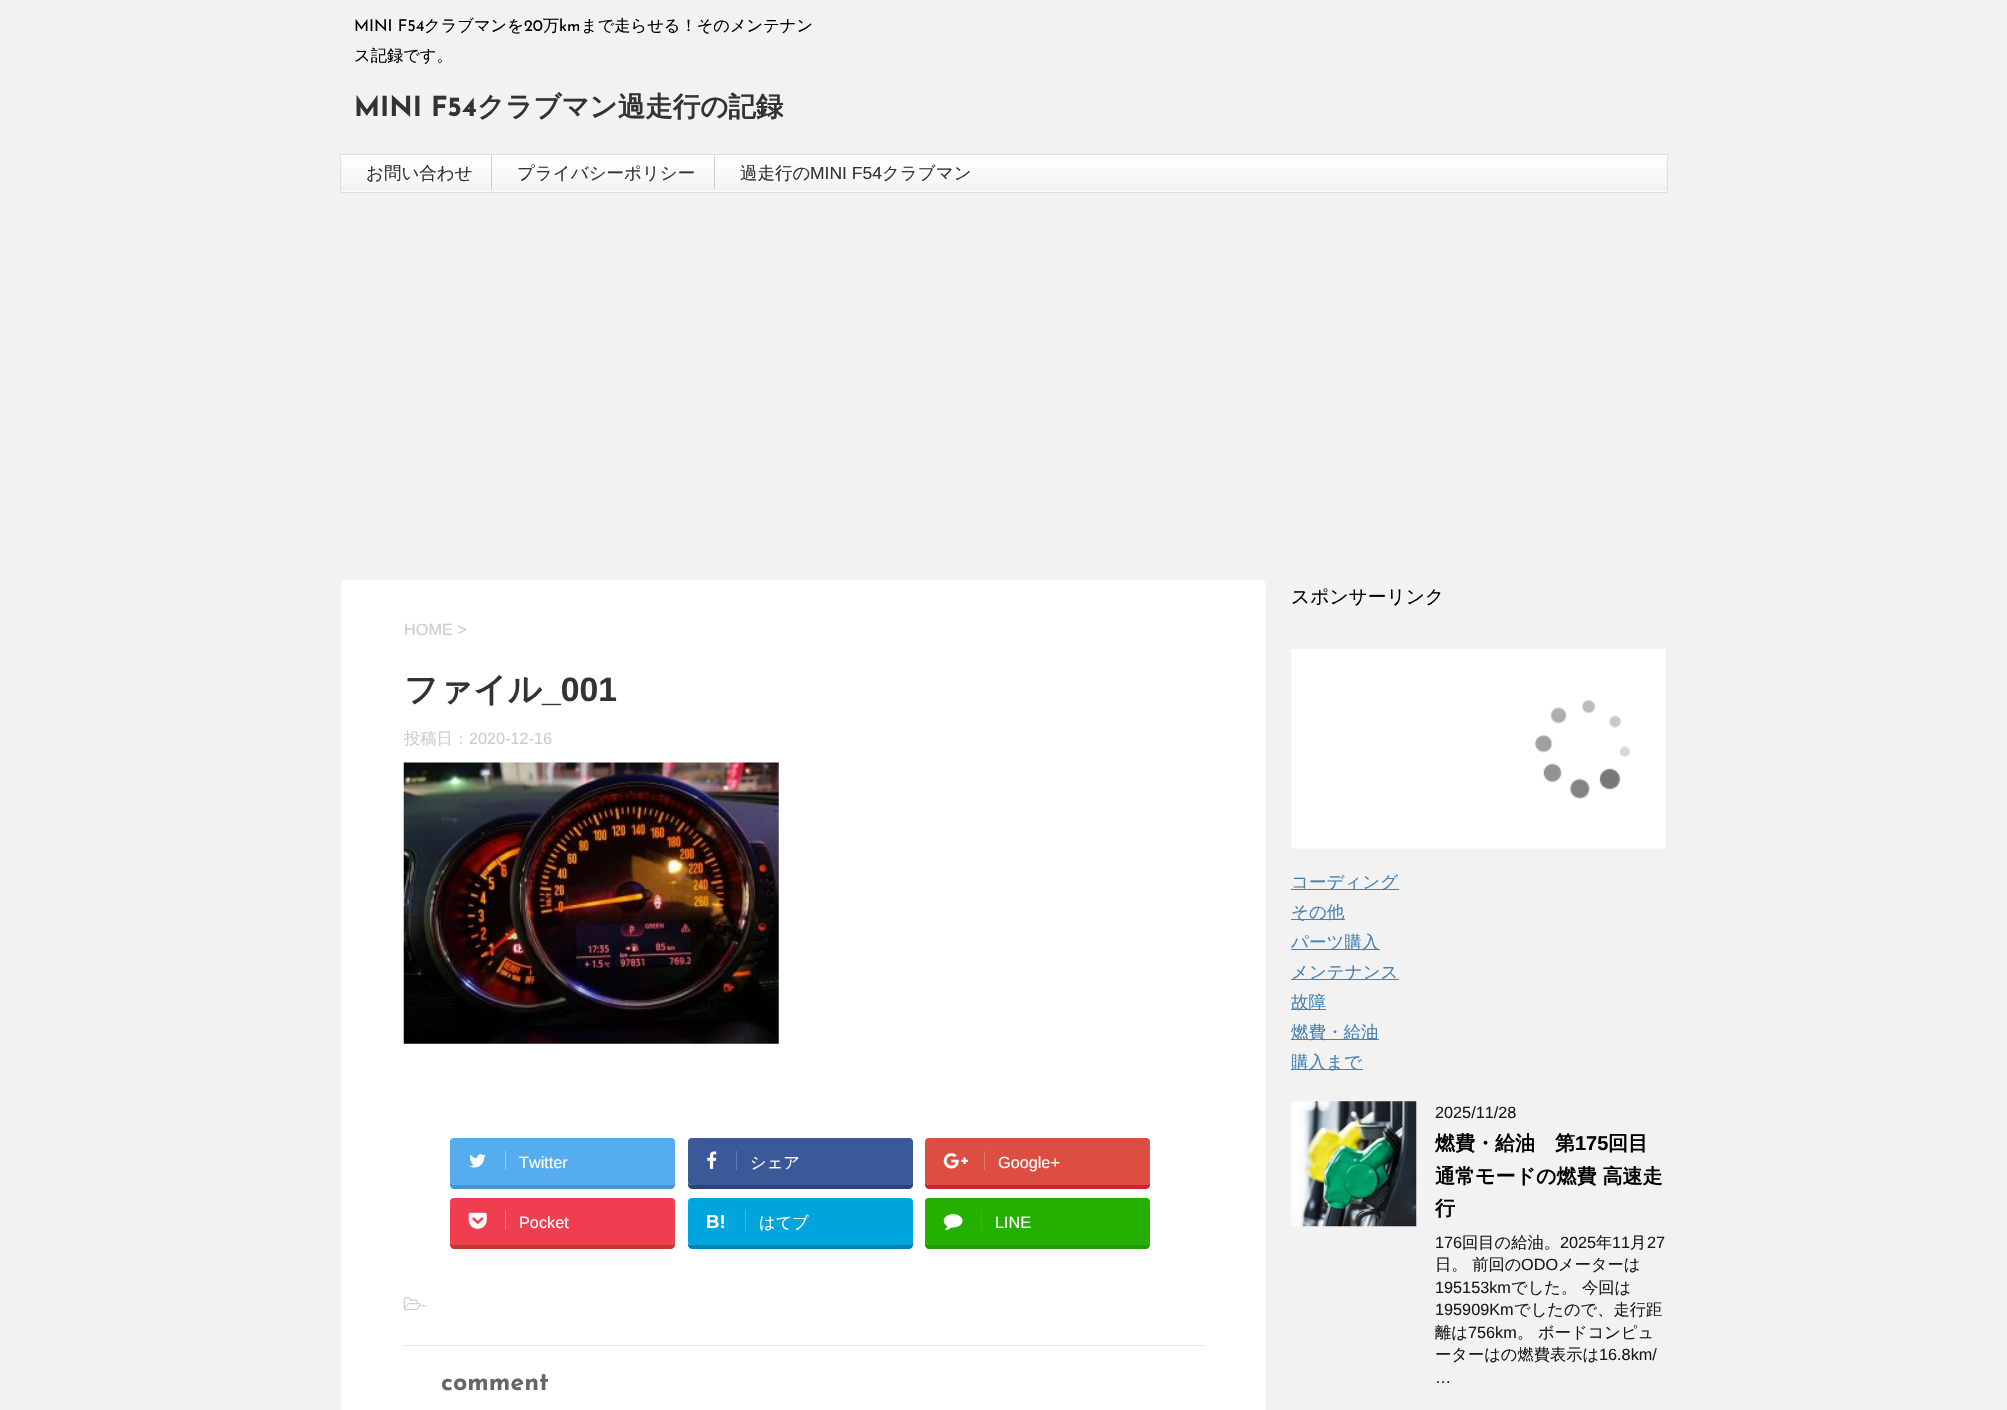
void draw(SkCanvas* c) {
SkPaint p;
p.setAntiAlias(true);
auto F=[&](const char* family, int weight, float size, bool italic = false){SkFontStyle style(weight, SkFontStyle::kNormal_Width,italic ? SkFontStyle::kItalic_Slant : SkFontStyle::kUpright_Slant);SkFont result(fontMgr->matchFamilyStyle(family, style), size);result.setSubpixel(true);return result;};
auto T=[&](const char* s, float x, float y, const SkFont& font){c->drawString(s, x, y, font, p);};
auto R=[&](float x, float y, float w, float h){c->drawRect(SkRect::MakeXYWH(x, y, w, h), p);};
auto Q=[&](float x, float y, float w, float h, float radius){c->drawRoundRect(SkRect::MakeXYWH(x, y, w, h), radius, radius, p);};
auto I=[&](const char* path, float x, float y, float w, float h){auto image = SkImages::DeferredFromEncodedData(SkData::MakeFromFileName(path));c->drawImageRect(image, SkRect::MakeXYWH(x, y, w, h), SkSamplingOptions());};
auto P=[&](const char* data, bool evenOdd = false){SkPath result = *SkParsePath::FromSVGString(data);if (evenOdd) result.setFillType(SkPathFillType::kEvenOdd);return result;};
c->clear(0xfff2f2f2);
auto f1 = F("Josefin Sans",400,16.25);
p.setColor(0xff000000);
T("MINI F54",354,31,f1);
auto f2 = F("WenQuanYi Zen Hei",500,16.25);
T("クラブマンを",424,31,f2);
T("20",524,31,f1);
T("万",543,31,f2);
T("km",559,31,f1);
T("まで走らせる！そのメンテナン",581,31,f2);
T("ス記録です。",354,61,f2);
auto f3 = F("Josefin Sans",700,27.5);
p.setColor(0xff333333);
T("MINI F54",354,116,f3);
auto f4 = F("WenQuanYi Zen Hei",700,27.5);
T("クラブマン過走行の記録",477,116,f4);
{
const SkColor colors[] = {0xffffffff,0xfff3f3f3};
const float stops[] = {0,1};
const SkPoint ends[] = {{1004,155}, {1004,191}};
p.setShader(SkGradientShader::MakeLinear(ends, colors, stops, 2, SkTileMode::kClamp));
p.setAlpha(255);
}
R(341,155,1326,32);
{
const SkColor colors[] = {0xffffffff,0xfff3f3f3};
const float stops[] = {0,1};
const SkPoint ends[] = {{1004,191}, {1004,228}};
p.setShader(SkGradientShader::MakeLinear(ends, colors, stops, 2, SkTileMode::kClamp));
p.setAlpha(255);
}
c->drawPath(P("M340 191h1328v1c0 .5-.5 1-1 1h-1326c-.5 0-1-.5-1-1z"),p);
p.setStroke(true);
p.setStrokeWidth(1);
p.setShader(nullptr);
p.setColor(0xffe0dede);
c->drawRoundRect(SkRect::MakeXYWH(340.5,154.5,1327,38),.5,.5,p);
auto f5 = F("WenQuanYi Zen Hei",500,17.5);
p.setStroke(false);
p.setColor(0xff333333);
T("お問い合わせ",366,179,f5);
p.setColor(0xffcccccc);
R(491,156,1,33);
p.setColor(0xff333333);
T("プライバシーポリシー",517,179,f5);
p.setColor(0xffcccccc);
R(714,156,1,33);
p.setColor(0xff333333);
T("過走行の",740,179,f5);
auto f6 = F("Liberation Sans",400,17.5);
T("MINI F54",810,179,f6);
T("クラブマン",882,179,f5);
p.setColor(0xffffffff);
Q(341,580,925,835,5);
auto f7 = F("Liberation Sans",400,16.25);
p.setColor(0xffcccccc);
T("HOME >",404,635,f7);
auto f8 = F("WenQuanYi Zen Hei",700,33.75);
p.setColor(0xff333333);
T("ファイル",404,701,f8);
auto f9 = F("Liberation Sans",700,33.75);
T("_001",542,701,f9);
p.setColor(0xffcccccc);
T("投稿日：",404,744,f2);
T("2020-12-16",469,744,f7);
I("1.png",403,762,376,282);
p.setColor(0xff4892cb);
c->drawPath(P("M450 1181v4c0 2 2 4 4 4h217c2 0 4-2 4-4v-4c0 2-2 4-4 4h-217c-2 0-4-2-4-4z"),p);
p.setColor(0xff55acee);
Q(450,1138,225,47,4);
p.setColor(0xff9acff4);
R(505,1151,1,19);
I("2.png",469,1154,17,14);
p.setColor(0xffffffff);
T("Twitter",519,1168,f7);
p.setColor(0xff2c4373);
c->drawPath(P("M688 1183v2c0 2 2 4 4 4h217c2 0 4-2 4-4v-40l-1-2v38c0 2-1 4-3 4h-218c-1 0-2-1-3-2z"),p);
p.setColor(0xff3b5998);
Q(688,1138,225,47,4);
p.setColor(0xff607bb2);
R(736,1151,1,19);
I("3.png",707,1151,10,18);
p.setColor(0xffffffff);
T("シェア",750,1168,f2);
p.setColor(0xffd51e31);
c->drawPath(P("M925 1181v4c0 2 2 4 4 4h217c2 0 4-2 4-4v-4c0 2-2 4-4 4h-217c-2 0-4-2-4-4z"),p);
p.setColor(0xffdc4e41);
Q(925,1138,225,47,4);
p.setColor(0xffe0776d);
R(984,1151,1,19);
I("4.png",943,1153,25,16);
p.setColor(0xffffffff);
T("Google+",998,1168,f7);
p.setColor(0xffc0392b);
c->drawPath(P("M450 1241v4c0 2 2 4 4 4h217c2 0 4-2 4-4v-4c0 2-2 4-4 4h-217c-2 0-4-2-4-4z"),p);
p.setColor(0xfff03e51);
Q(450,1198,225,47,4);
p.setColor(0xfff27985);
R(505,1211,1,19);
I("5.png",468,1212,19,17);
p.setColor(0xffffffff);
T("Pocket",519,1228,f7);
p.setColor(0xff0081b8);
c->drawPath(P("M688 1243v2c0 2 2 4 4 4h217c2 0 4-2 4-4v-40l-1-2v38c0 2-1 4-3 4h-218c-1 0-2-1-3-2z"),p);
p.setColor(0xff00a5de);
Q(688,1198,225,47,4);
auto f10 = F("Liberation Sans",700,18.75);
p.setColor(0xffffffff);
T("B!",706,1228,f10);
p.setColor(0xff48b6db);
R(745,1210,1,21);
p.setColor(0xffffffff);
T("はてブ",759,1228,f2);
p.setColor(0xff219900);
c->drawPath(P("M925 1241v4c0 2 2 4 4 4h217c2 0 4-2 4-4v-4c0 2-2 4-4 4h-217c-2 0-4-2-4-4z"),p);
p.setColor(0xff25af00);
Q(925,1198,225,47,4);
p.setColor(0xff29c200);
R(981,1211,1,19);
I("6.png",943,1214,20,17);
p.setColor(0xffffffff);
T("LINE",995,1228,f7);
I("7.png",403,1297,18,13);
p.setColor(0xffcccccc);
T("-",421,1310,f7);
p.setColor(0xffe6e6e6);
R(404,1345,800,1);
auto f11 = F("Josefin Sans",700,25);
p.setColor(0xff666666);
T("comment",441,1390,f11);
auto f12 = F("WenQuanYi Zen Hei",500,18.75);
p.setColor(0xff000000);
T("スポンサーリンク",1291,603,f12);
I("8.png",1291,649,375,200);
p.setColor(0xff4682b4);
R(1291,889,108,1);
T("コーディング",1291,888,f5);
R(1291,919,54,1);
T("その他",1291,918,f5);
R(1291,949,89,1);
T("パーツ購入",1291,948,f5);
R(1291,979,108,1);
T("メンテナンス",1291,978,f5);
R(1291,1009,35,1);
T("故障",1291,1008,f5);
R(1291,1039,88,1);
T("燃費・給油",1291,1038,f5);
R(1291,1069,72,1);
T("購入まで",1291,1068,f5);
I("9.png",1291,1101,126,126);
p.setColor(0xff1a1a1a);
T("2025/11/28",1435,1118,f7);
auto f13 = F("WenQuanYi Zen Hei",700,20);
p.setColor(0xff000000);
T("燃費・給油　第",1435,1150,f13);
auto f14 = F("Liberation Sans",700,20);
T("175",1575,1150,f14);
T("回目",1608,1150,f13);
T("通常モードの燃費 高速走",1435,1183,f13);
T("行",1435,1215,f13);
p.setColor(0xff1a1a1a);
T("176",1435,1248,f7);
T("回目の給油。",1462,1248,f2);
T("2025",1560,1248,f7);
T("年",1596,1248,f2);
T("11",1612,1248,f7);
T("月",1630,1248,f2);
T("27",1647,1248,f7);
T("日。 前回の",1435,1270,f2);
T("ODO",1521,1270,f7);
T("メーターは",1558,1270,f2);
T("195153km",1435,1293,f7);
T("でした。 今回は",1511,1293,f2);
T("195909Km",1435,1315,f7);
T("でしたので、走行距",1514,1315,f2);
T("離は",1435,1338,f2);
T("756km",1468,1338,f7);
T("。 ボードコンピュ",1517,1338,f2);
T("ーターはの燃費表示は",1435,1360,f2);
T("16.8km/",1599,1360,f7);
T("…",1435,1383,f7);
}
